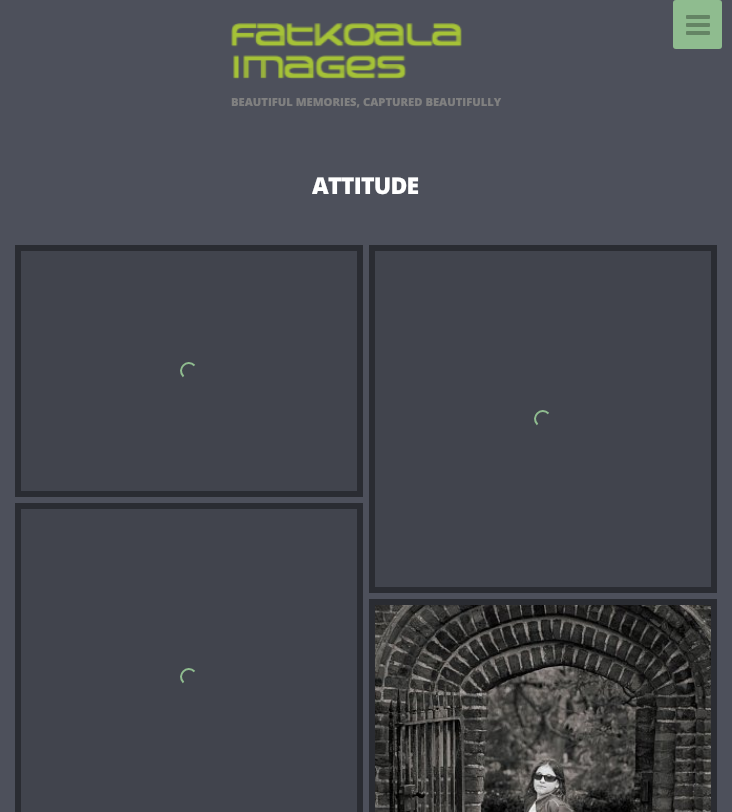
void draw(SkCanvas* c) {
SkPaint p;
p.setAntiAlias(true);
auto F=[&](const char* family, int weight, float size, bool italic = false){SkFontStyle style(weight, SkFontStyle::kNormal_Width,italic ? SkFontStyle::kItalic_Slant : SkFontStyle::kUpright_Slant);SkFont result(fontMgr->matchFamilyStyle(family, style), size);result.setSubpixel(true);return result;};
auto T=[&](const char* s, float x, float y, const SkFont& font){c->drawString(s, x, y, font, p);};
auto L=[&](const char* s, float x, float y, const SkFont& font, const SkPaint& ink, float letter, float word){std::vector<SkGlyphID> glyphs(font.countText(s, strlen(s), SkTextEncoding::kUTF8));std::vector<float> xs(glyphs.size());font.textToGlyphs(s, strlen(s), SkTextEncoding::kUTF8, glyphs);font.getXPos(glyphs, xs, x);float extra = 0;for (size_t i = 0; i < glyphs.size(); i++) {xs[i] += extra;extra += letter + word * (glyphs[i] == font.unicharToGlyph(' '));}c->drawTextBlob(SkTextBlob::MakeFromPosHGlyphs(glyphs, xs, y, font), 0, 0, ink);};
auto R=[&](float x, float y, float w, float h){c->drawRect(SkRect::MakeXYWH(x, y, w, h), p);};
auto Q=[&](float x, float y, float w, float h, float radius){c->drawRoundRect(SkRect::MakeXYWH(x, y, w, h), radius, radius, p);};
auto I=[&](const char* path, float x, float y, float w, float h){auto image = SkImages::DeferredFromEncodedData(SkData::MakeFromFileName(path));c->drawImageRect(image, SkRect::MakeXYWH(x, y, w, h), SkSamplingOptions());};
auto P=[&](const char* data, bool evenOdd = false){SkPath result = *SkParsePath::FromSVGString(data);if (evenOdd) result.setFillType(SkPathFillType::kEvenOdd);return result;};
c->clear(0xff4d505b);
p.setColor(0xff8fbc8f);
Q(673,0,49,49,3);
I("1.png",686,15,24,20);
I("2.png",231,23,231,56);
auto f1 = F("Open Sans",800,11.2);
p.setColor(0xff808080);
T("BEAUTIFUL MEMORIES, CAPTURED BEAUTIFULLY",231,106,f1);
auto f2 = F("Open Sans",800,23);
p.setColor(0xffffffff);
L("ATTITUDE",312,194,f2,p,-.75,0);
p.setColor(0xff2a2c32);
R(15,245,348,252);
p.setColor(0xff41444d);
R(21,251,336,240);
p.setStroke(true);
p.setStrokeWidth(2);
p.setColor(0xff8fbc8f);
c->drawPath(P("M183.5 376.5c-7.5-7.5 3.5-18.5 11-11"),p);
p.setStroke(false);
p.setColor(0xff2a2c32);
R(369,245,348,348);
p.setColor(0xff41444d);
R(375,251,336,336);
p.setStroke(true);
p.setColor(0xff8fbc8f);
c->drawPath(P("M537.5 424.5c-7.5-7.5 3.5-18.5 11-11"),p);
p.setStroke(false);
p.setColor(0xff2a2c32);
R(15,503,348,309);
p.setColor(0xff41444d);
R(21,509,336,303);
p.setStroke(true);
p.setColor(0xff8fbc8f);
c->drawPath(P("M183.5 682.5c-7.5-7.5 3.5-18.5 11-11"),p);
p.setStroke(false);
p.setColor(0xff2a2c32);
R(369,599,348,213);
I("3.png",375,605,336,207);
}
